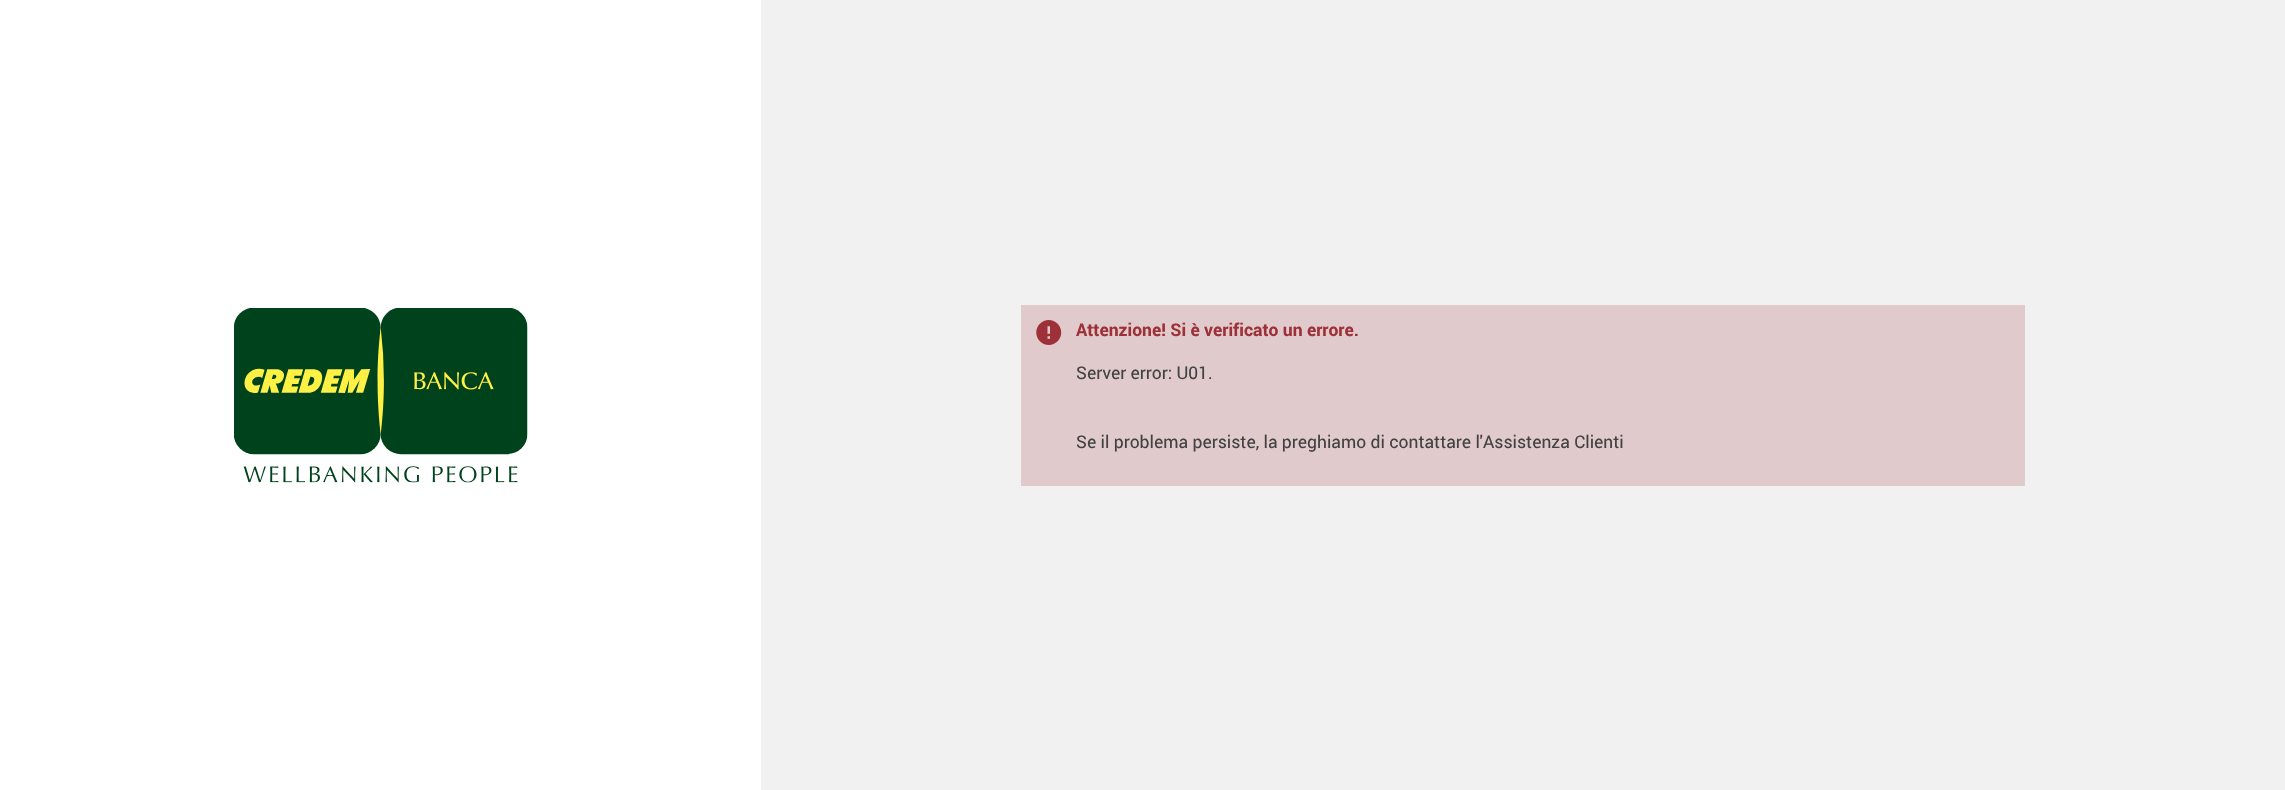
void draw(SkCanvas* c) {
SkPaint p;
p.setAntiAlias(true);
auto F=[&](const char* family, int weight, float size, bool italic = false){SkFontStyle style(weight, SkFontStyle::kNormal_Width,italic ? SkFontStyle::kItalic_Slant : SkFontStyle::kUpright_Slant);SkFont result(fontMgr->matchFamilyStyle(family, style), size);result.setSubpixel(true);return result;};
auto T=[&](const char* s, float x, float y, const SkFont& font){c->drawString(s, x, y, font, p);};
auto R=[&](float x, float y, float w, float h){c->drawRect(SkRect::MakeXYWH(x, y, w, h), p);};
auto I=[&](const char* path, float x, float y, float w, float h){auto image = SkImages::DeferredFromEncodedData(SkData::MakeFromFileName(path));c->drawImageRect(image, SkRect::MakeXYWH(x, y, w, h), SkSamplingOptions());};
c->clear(0xffffffff);
I("1.png",234,308,294,175);
p.setColor(0xfff1f1f1);
R(761,0,1524,790);
p.setColor(0xffe0cacc);
R(1021,305,1004,181);
I("2.png",1036,320,26,25);
auto f1 = F("Roboto",700,17.5);
p.setColor(0xff9e3039);
T("Attenzione! Si è verificato un errore.",1076,336,f1);
auto f2 = F("Roboto",400,17.5);
p.setColor(0xff424242);
T("Server error: U01.",1076,379,f2);
T("Se il problema persiste, la preghiamo di contattare l'Assistenza Clienti",1076,448,f2);
}
